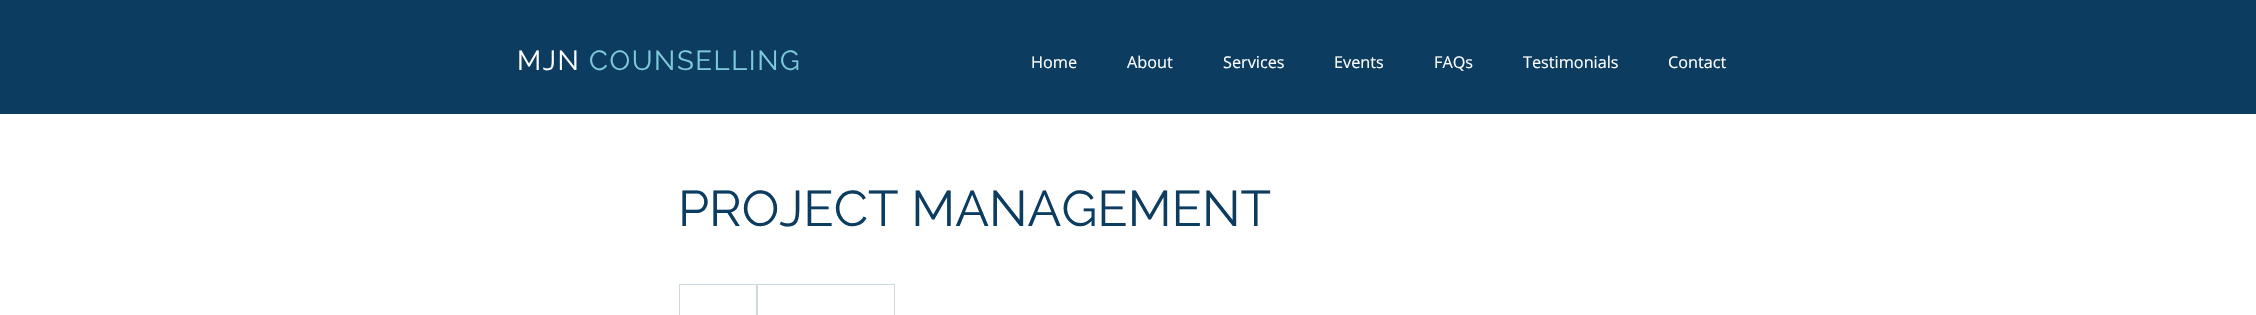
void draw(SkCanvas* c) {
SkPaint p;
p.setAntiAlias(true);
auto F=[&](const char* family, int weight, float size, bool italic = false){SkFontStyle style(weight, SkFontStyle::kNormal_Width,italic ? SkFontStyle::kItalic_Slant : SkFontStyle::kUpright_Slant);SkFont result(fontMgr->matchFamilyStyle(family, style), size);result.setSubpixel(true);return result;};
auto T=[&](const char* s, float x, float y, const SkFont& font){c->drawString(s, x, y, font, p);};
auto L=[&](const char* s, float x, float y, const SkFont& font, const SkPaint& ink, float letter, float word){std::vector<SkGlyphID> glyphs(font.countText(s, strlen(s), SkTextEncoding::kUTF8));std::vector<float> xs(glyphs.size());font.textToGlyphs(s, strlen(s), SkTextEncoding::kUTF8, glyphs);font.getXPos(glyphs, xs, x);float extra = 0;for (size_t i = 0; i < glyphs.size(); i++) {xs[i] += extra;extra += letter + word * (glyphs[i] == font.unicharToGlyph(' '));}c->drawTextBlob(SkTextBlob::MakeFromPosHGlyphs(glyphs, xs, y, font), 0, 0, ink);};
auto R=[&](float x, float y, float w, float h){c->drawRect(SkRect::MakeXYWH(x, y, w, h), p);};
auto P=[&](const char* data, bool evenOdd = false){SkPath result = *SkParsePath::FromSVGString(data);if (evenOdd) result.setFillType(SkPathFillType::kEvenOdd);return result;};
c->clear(0xffffffff);
p.setColor(0xff0c3c60);
R(0,0,2256,114);
auto f1 = F("Raleway",400,27.5);
p.setColor(0xffffffff);
L("MJN",517,70,f1,p,1.6,0);
p.setColor(0xff7dcada);
L("COUNSELLING",589,70,f1,p,1.6,0);
auto f2 = F("Open Sans",400,16.25);
p.setColor(0xffffffff);
T("Home",1031,68,f2);
T("About",1127,68,f2);
T("Services",1223,68,f2);
T("Events",1334,68,f2);
T("FAQs",1434,68,f2);
T("Testimonials",1523,68,f2);
T("Contact",1668,68,f2);
auto f3 = F("Raleway",400,50);
p.setColor(0xff0c3c60);
T("PROJECT MANAGEMENT",678,226,f3);
p.setStroke(true);
p.setStrokeWidth(1);
p.setColor(0xffced8df);
c->drawRect(SkRect::MakeXYWH(679.5,284.5,215,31),p);
p.setStroke(false);
c->drawPath(P("M756 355v-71l2 1v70z"),p);
}
